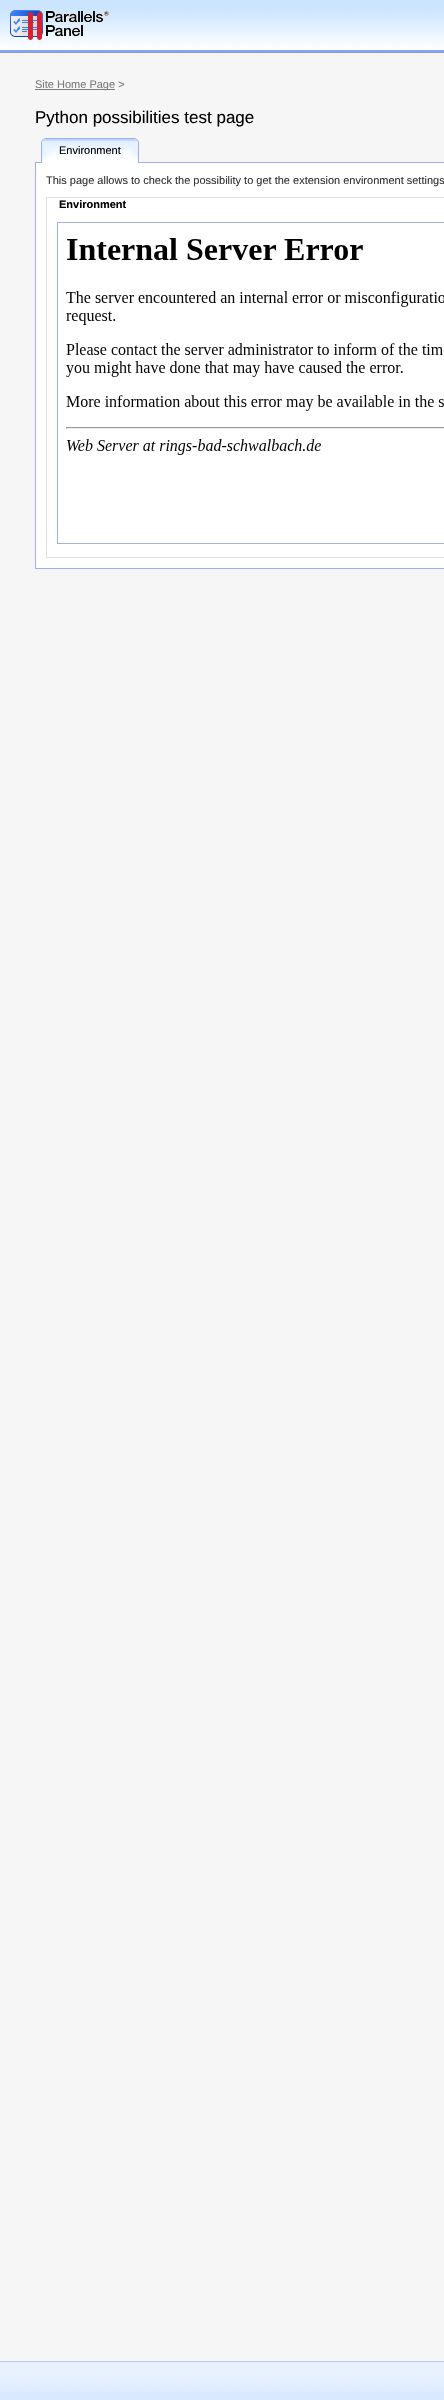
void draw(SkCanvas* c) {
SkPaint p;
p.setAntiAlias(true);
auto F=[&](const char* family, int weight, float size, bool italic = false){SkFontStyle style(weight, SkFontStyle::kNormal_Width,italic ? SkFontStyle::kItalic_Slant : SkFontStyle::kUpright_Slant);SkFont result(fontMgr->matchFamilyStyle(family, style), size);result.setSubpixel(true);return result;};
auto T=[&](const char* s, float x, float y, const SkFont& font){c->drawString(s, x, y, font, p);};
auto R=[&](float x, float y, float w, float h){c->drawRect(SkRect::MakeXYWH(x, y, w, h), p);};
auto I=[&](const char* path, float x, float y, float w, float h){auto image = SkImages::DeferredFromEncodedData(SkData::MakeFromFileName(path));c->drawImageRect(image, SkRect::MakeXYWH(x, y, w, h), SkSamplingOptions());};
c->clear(0xfff6f6f6);
I("1.png",0,0,444,53);
I("2.png",10,10,99,30);
p.setColor(0xff7b7b7b);
R(35,89,80,1);
auto f1 = F("Liberation Sans",400,11);
T("Site Home Page >",35,88,f1);
auto f2 = F("Liberation Sans",400,17);
p.setColor(0xff000000);
T("Python possibilities test page",35,123,f2);
p.setColor(0xffffffff);
c->drawRect(SkRect::MakeXYWH(35.5,162.5,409,406),p);
p.setStroke(true);
p.setStrokeWidth(1);
p.setColor(0xffa0b0e9);
c->drawRect(SkRect::MakeXYWH(35.5,162.5,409,406),p);
I("3.png",41,138,90,25);
I("4.png",131,138,8,25);
p.setStroke(false);
p.setColor(0xff000000);
T("Environment",59,154,f1);
p.setColor(0xff333333);
T("This page allows to check the possibility to get the extension environment settings",46,184,f1);
p.setStroke(true);
p.setColor(0xffe0e0e0);
c->drawRect(SkRect::MakeXYWH(46.5,197.5,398,360),p);
auto f3 = F("Liberation Sans",700,11);
p.setStroke(false);
p.setColor(0xff000000);
T("Environment",59,208,f3);
p.setStroke(true);
p.setColor(0xffa0b0e9);
c->drawRect(SkRect::MakeXYWH(57.5,222.5,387,321),p);
I("5.png",66,238,378,217);
p.setStroke(false);
p.setColor(0xffd9e9ff);
R(0,2392,444,8);
I("6.png",0,2362,444,30);
p.setColor(0xffc0c7fc);
R(0,2361,444,1);
}
